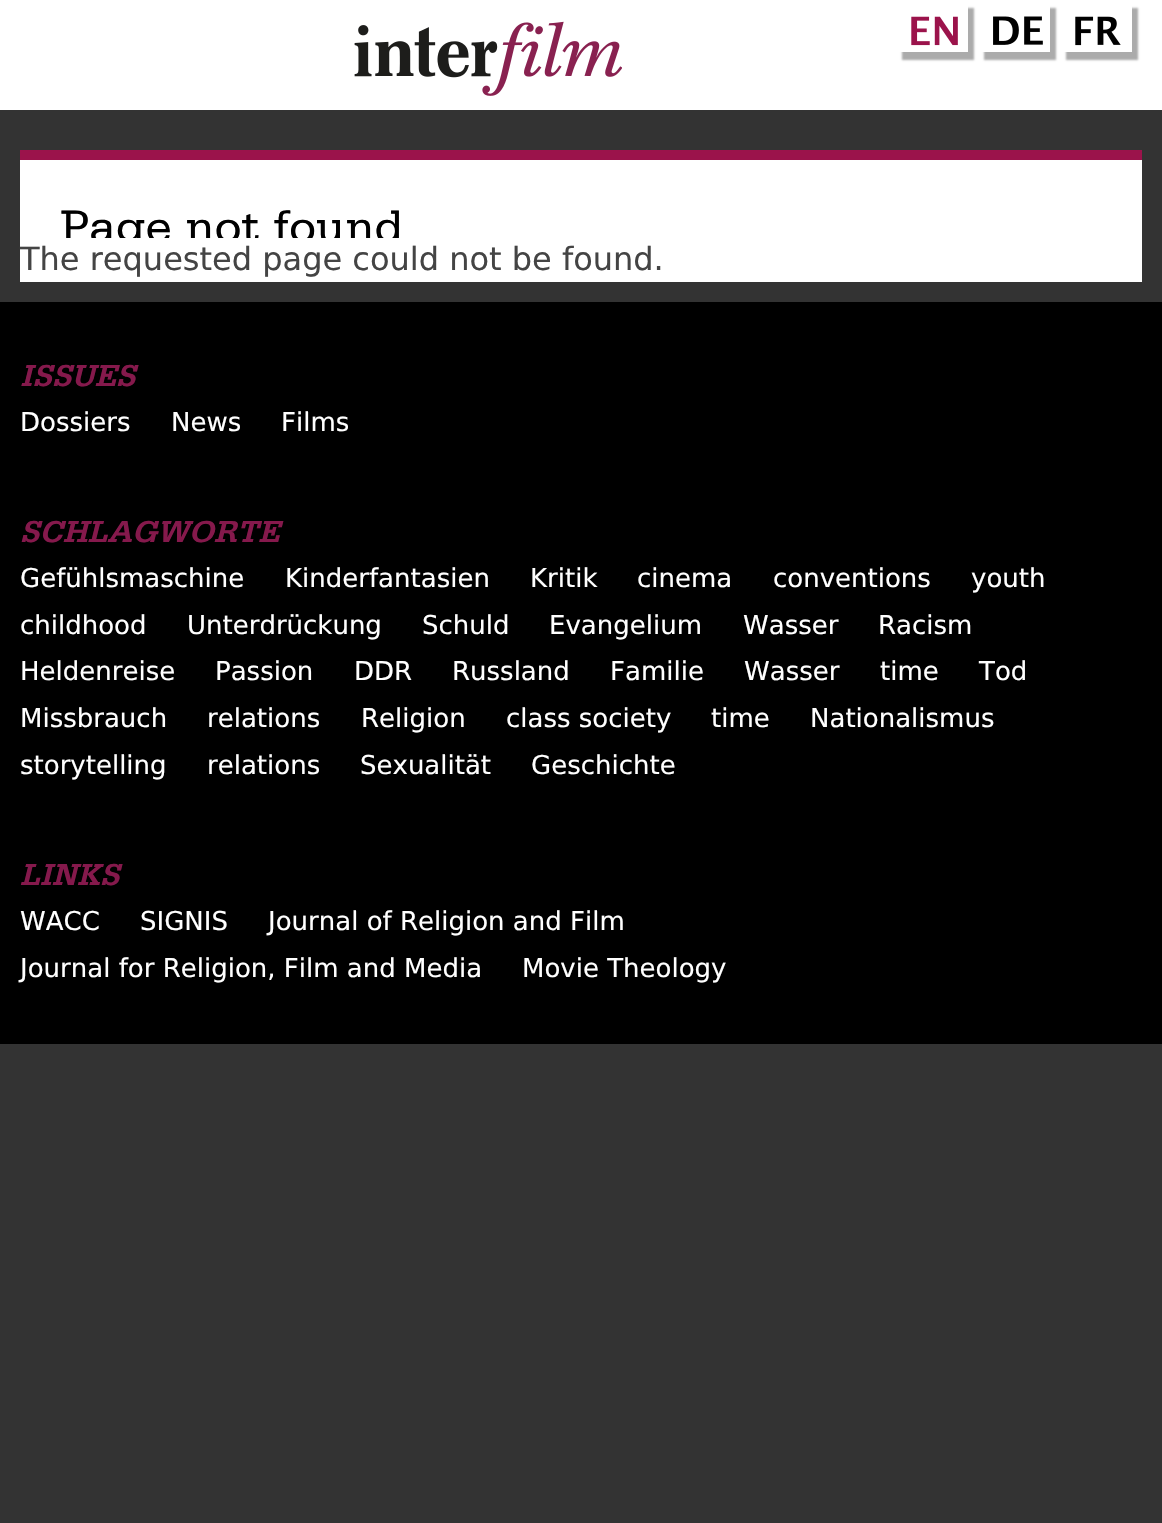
void draw(SkCanvas* c) {
SkPaint p;
p.setAntiAlias(true);
auto F=[&](const char* family, int weight, float size, bool italic = false){SkFontStyle style(weight, SkFontStyle::kNormal_Width,italic ? SkFontStyle::kItalic_Slant : SkFontStyle::kUpright_Slant);SkFont result(fontMgr->matchFamilyStyle(family, style), size);result.setSubpixel(true);return result;};
auto T=[&](const char* s, float x, float y, const SkFont& font){c->drawString(s, x, y, font, p);};
auto R=[&](float x, float y, float w, float h){c->drawRect(SkRect::MakeXYWH(x, y, w, h), p);};
auto I=[&](const char* path, float x, float y, float w, float h){auto image = SkImages::DeferredFromEncodedData(SkData::MakeFromFileName(path));c->drawImageRect(image, SkRect::MakeXYWH(x, y, w, h), SkSamplingOptions());};
auto P=[&](const char* data, bool evenOdd = false){SkPath result = *SkParsePath::FromSVGString(data);if (evenOdd) result.setFillType(SkPathFillType::kEvenOdd);return result;};
c->clear(0xff333333);
p.setColor(0xffffffff);
R(0,0,1162,110);
I("1.png",354,21,268,75);
c->save();
c->clipPath(P("M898 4h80v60h-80zm-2-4h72v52h-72z",true),true);
p.setColor(0xffababab);
p.setMaskFilter(SkMaskFilter::MakeBlur(kNormal_SkBlurStyle, 1));
c->drawRect(SkRect::MakeXYWH(902,8,72,52),p);
p.setMaskFilter(nullptr);
c->restore();
I("2.png",911,16,47,30);
c->save();
c->clipPath(P("M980 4h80v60h-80zm-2-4h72v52h-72z",true),true);
p.setMaskFilter(SkMaskFilter::MakeBlur(kNormal_SkBlurStyle, 1));
c->drawRect(SkRect::MakeXYWH(984,8,72,52),p);
p.setMaskFilter(nullptr);
c->restore();
I("3.png",993,16,50,29);
c->save();
c->clipPath(P("M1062 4h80v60h-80zm-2-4h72v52h-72z",true),true);
p.setMaskFilter(SkMaskFilter::MakeBlur(kNormal_SkBlurStyle, 1));
c->drawRect(SkRect::MakeXYWH(1066,8,72,52),p);
p.setMaskFilter(nullptr);
c->restore();
I("4.png",1075,16,46,30);
p.setColor(0xffffffff);
R(20,160,1122,78);
p.setColor(0xff9b134b);
R(20,150,1122,10);
auto f1 = F("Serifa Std",400,48);
p.setColor(0xff000000);
T("Page not found",60,242,f1);
p.setColor(0xffffffff);
R(20,238,1122,44);
auto f2 = F("DejaVu Sans",400,32);
p.setColor(0xff444444);
T("The requested page could not be found.",20,270,f2);
p.setColor(0xff000000);
R(0,302,1162,742);
auto f3 = F("Serifa Std",700,32,true);
p.setColor(0xff85194c);
T("ISSUES",20,386,f3);
auto f4 = F("DejaVu Sans",400,26);
p.setColor(0xffffffff);
T("Dossiers",20,431,f4);
T("News",171,431,f4);
T("Films",281,431,f4);
p.setColor(0xff85194c);
T("SCHLAGWORTE",20,542,f3);
p.setColor(0xffffffff);
T("Gefühlsmaschine",20,587,f4);
T("Kinderfantasien",285,587,f4);
T("Kritik",530,587,f4);
T("cinema",637,587,f4);
T("conventions",773,587,f4);
T("youth",971,587,f4);
T("childhood",20,634,f4);
T("Unterdrückung",187,634,f4);
T("Schuld",422,634,f4);
T("Evangelium",549,634,f4);
T("Wasser",743,634,f4);
T("Racism",878,634,f4);
T("Heldenreise",20,680,f4);
T("Passion",215,680,f4);
T("DDR",354,680,f4);
T("Russland",452,680,f4);
T("Familie",610,680,f4);
T("Wasser",744,680,f4);
T("time",880,680,f4);
T("Tod",979,680,f4);
T("Missbrauch",20,727,f4);
T("relations",207,727,f4);
T("Religion",361,727,f4);
T("class society",506,727,f4);
T("time",711,727,f4);
T("Nationalismus",810,727,f4);
T("storytelling",20,774,f4);
T("relations",207,774,f4);
T("Sexualität",360,774,f4);
T("Geschichte",531,774,f4);
p.setColor(0xff85194c);
T("LINKS",20,885,f3);
p.setColor(0xffffffff);
T("WACC",20,930,f4);
T("SIGNIS",140,930,f4);
T("Journal of Religion and Film",268,930,f4);
T("Journal for Religion, Film and Media",20,977,f4);
T("Movie Theology",522,977,f4);
}
